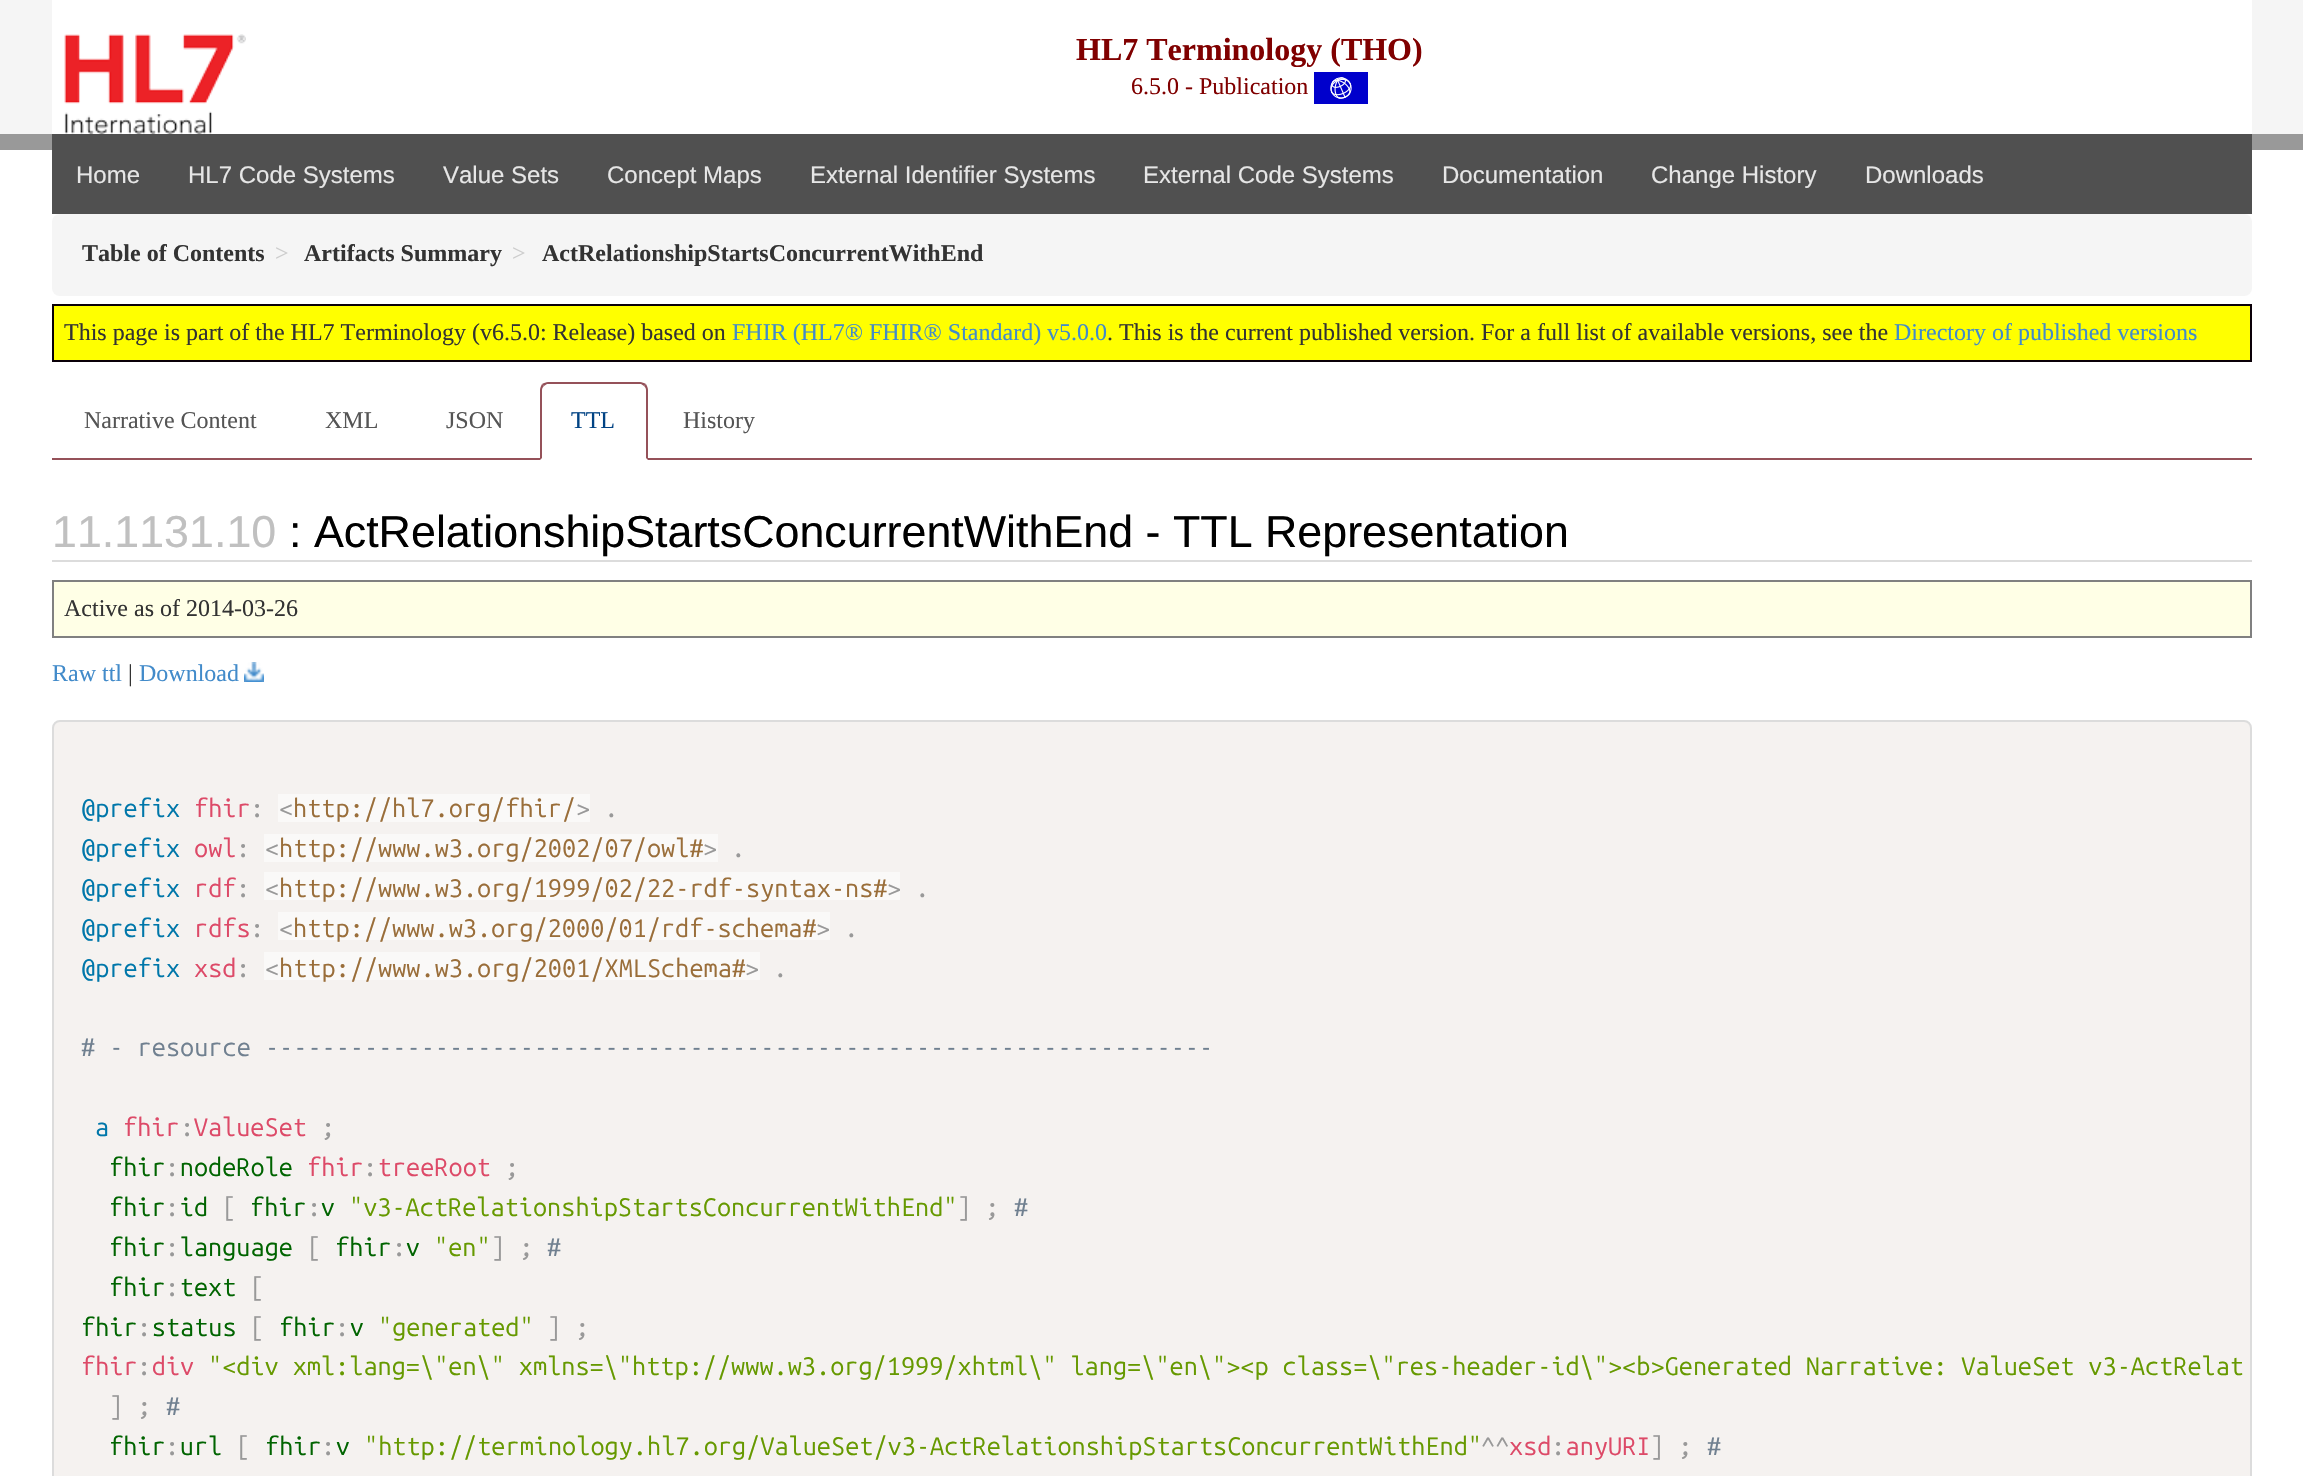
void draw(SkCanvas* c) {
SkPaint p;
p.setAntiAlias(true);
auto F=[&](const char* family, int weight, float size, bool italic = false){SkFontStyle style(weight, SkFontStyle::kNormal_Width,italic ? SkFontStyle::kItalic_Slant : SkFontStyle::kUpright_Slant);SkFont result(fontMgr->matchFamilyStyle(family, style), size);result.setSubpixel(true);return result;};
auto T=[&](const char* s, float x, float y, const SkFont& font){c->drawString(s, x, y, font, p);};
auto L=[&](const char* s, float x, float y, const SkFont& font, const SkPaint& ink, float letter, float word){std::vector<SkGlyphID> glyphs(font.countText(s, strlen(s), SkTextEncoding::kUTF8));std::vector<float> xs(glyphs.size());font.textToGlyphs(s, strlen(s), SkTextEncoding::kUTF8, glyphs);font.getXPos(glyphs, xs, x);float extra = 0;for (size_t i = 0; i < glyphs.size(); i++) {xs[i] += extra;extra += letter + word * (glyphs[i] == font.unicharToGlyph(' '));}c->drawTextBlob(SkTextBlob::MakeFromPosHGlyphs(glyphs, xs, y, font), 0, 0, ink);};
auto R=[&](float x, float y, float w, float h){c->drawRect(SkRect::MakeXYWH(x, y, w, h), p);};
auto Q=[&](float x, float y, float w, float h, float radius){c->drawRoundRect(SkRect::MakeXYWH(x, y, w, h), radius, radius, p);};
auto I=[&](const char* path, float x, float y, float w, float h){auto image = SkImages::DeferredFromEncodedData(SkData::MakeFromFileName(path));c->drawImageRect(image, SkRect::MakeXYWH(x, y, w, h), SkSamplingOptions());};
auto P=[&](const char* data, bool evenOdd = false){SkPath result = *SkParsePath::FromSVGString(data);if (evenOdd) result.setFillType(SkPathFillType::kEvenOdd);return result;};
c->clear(0xffffffff);
p.setColor(0xfff5f5f5);
R(0,0,2303,134);
p.setColor(0xffffffff);
R(52,0,2200,134);
I("1.png",64,34,182,100);
auto f1 = F("Liberation Serif",700,32);
p.setColor(0xff800000);
T("HL7 Terminology (THO)",1076,60,f1);
auto f2 = F("Liberation Serif",400,24);
T("6.5.0 - Publication",1131,94,f2);
I("2.png",1314,72,54,32);
p.setColor(0xff999999);
R(0,134,2303,16);
p.setColor(0xff505050);
R(52,134,2200,80);
auto f3 = F("Liberation Sans",400,24);
p.setColor(0xffe6e6e6);
T("Home",76,183,f3);
T("HL7 Code Systems",188,183,f3);
T("Value Sets",443,183,f3);
T("Concept Maps",607,183,f3);
T("External Identifier Systems",810,183,f3);
T("External Code Systems",1143,183,f3);
T("Documentation",1442,183,f3);
T("Change History",1651,183,f3);
T("Downloads",1865,183,f3);
p.setColor(0xfff5f5f5);
Q(52,214,2200,82,8);
auto f4 = F("Liberation Serif",700,24);
p.setColor(0xff333333);
T("Table of Contents",82,261,f4);
p.setColor(0xffcccccc);
T(">",275,261,f2);
p.setColor(0xff333333);
T("Artifacts Summary",304,261,f4);
p.setColor(0xffcccccc);
T(">",512,261,f2);
p.setColor(0xff333333);
T("ActRelationshipStartsConcurrentWithEnd",542,261,f4);
p.setColor(0xffffff00);
c->drawRect(SkRect::MakeXYWH(53,305,2198,56),p);
p.setStroke(true);
p.setStrokeWidth(2);
p.setColor(0xff0a0008);
c->drawRect(SkRect::MakeXYWH(53,305,2198,56),p);
p.setStroke(false);
p.setColor(0xff333333);
T("This page is part of the HL7 Terminology (v6.5.0: Release) based on",64,340,f2);
p.setColor(0xff428bca);
T("FHIR (HL7® FHIR® Standard) v5.0.0",732,340,f2);
p.setColor(0xff333333);
T(". This is the current published version. For a full list of available versions, see the",1107,340,f2);
p.setColor(0xff428bca);
T("Directory of published versions",1894,340,f2);
p.setColor(0xff955159);
R(52,458,2200,2);
p.setColor(0xff555555);
T("Narrative Content",84,428,f2);
T("XML",325,428,f2);
T("JSON",446,428,f2);
p.setColor(0xffffffff);
c->drawPath(P("M548 382h92c4.5 0 8 3.5 8 8v70h-108v-70c0-4.5 3.5-8 8-8z"),p);
p.setColor(0xff955159);
c->drawPath(P("M548 382c-2 0-4 1-6 2l2 2l3-2h94l3 2l2-2c-2-1-4-2-6-2z"),p);
c->drawPath(P("M648 460v-70c0-2-1-4-2-6l-2 2c1 1 2 2 2 4v68z"),p);
c->drawPath(P("M540 460l2-2v-68c0-2 1-3 2-4l-2-2c-1 2-2 4-2 6z"),p);
p.setColor(0xff014384);
T("TTL",571,428,f2);
p.setColor(0xff555555);
T("History",683,428,f2);
p.setColor(0xffdcdcdc);
R(52,560,2200,2);
auto f5 = F("Liberation Sans",400,44.8);
p.setColor(0xffc0c0c0);
T("11.1131.10",52,547,f5);
p.setColor(0xff000000);
T(": ActRelationshipStartsConcurrentWithEnd - TTL Representation",289,547,f5);
p.setColor(0xffffffe6);
R(54,582,2196,54);
p.setColor(0xff808080);
R(52,580,2200,2);
R(2250,580,2,58);
R(52,636,2200,2);
R(52,580,2,58);
p.setColor(0xff333333);
T("Active as of 2014-03-26",64,616,f2);
p.setColor(0xff428bca);
T("Raw ttl",52,681,f2);
p.setColor(0xff333333);
T("|",128,681,f2);
p.setColor(0xff428bca);
T("Download",139,681,f2);
I("3.png",244,662,20,20);
p.setColor(0xfff5f2f0);
c->drawRoundRect(SkRect::MakeXYWH(53,721,2198,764),7,7,p);
p.setStroke(true);
p.setColor(0xffdcdcdc);
c->drawRoundRect(SkRect::MakeXYWH(53,721,2198,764),7,7,p);
auto f6 = F("Ubuntu Mono",400,25.27);
p.setStroke(false);
p.setColor(0xff0077aa);
T("@prefix",81,817,f6);
p.setColor(0xffdd4a68);
T("fhir",194,817,f6);
p.setColor(0xff999999);
T(":",250,817,f6);
p.setColor(0xfffaf9f8);
R(278,794,312,28);
p.setColor(0xff999999);
T("<",279,817,f6);
p.setColor(0xff9a6e3a);
T("http://hl7.org/fhir/",293,817,f6);
p.setColor(0xff999999);
T("> .",576,817,f6);
p.setColor(0xff0077aa);
T("@prefix",81,857,f6);
p.setColor(0xffdd4a68);
T("owl",194,857,f6);
p.setColor(0xff999999);
T(":",236,857,f6);
p.setColor(0xfffaf9f8);
R(264,834,454,28);
p.setColor(0xff999999);
T("<",265,857,f6);
p.setColor(0xff9a6e3a);
T("http://www.w3.org/2002/07/owl#",279,857,f6);
p.setColor(0xff999999);
T("> .",703,857,f6);
p.setColor(0xff0077aa);
T("@prefix",81,897,f6);
p.setColor(0xffdd4a68);
T("rdf",194,897,f6);
p.setColor(0xff999999);
T(":",236,897,f6);
p.setColor(0xfffaf9f8);
R(264,872,636,28);
p.setColor(0xff999999);
T("<",265,897,f6);
p.setColor(0xff9a6e3a);
T("http://www.w3.org/1999/02/22-rdf-syntax-ns#",279,897,f6);
p.setColor(0xff999999);
T("> .",887,897,f6);
p.setColor(0xff0077aa);
T("@prefix",81,937,f6);
p.setColor(0xffdd4a68);
T("rdfs",194,937,f6);
p.setColor(0xff999999);
T(":",250,937,f6);
p.setColor(0xfffaf9f8);
R(278,912,552,28);
p.setColor(0xff999999);
T("<",279,937,f6);
p.setColor(0xff9a6e3a);
T("http://www.w3.org/2000/01/rdf-schema#",293,937,f6);
p.setColor(0xff999999);
T("> .",816,937,f6);
p.setColor(0xff0077aa);
T("@prefix",81,977,f6);
p.setColor(0xffdd4a68);
T("xsd",194,977,f6);
p.setColor(0xff999999);
T(":",236,977,f6);
p.setColor(0xfffaf9f8);
R(264,952,496,28);
p.setColor(0xff999999);
T("<",265,977,f6);
p.setColor(0xff9a6e3a);
T("http://www.w3.org/2001/XMLSchema#",279,977,f6);
p.setColor(0xff999999);
T("> .",745,977,f6);
p.setColor(0xff708090);
T("# - resource -------------------------------------------------------------------",81,1056,f6);
p.setColor(0xff0077aa);
T("a",95,1136,f6);
p.setColor(0xffdd4a68);
T("fhir ValueSet",123,1136,f6);
p.setColor(0xff999999);
T(":",180,1136,f6);
T(";",321,1136,f6);
p.setColor(0xff006400);
T("fhir nodeRole",109,1176,f6);
p.setColor(0xffdd4a68);
T("fhir treeRoot",307,1176,f6);
p.setColor(0xff999999);
T(":",165,1176,f6);
T(":",363,1176,f6);
T(";",505,1176,f6);
p.setColor(0xff006400);
T("fhir id",109,1216,f6);
p.setColor(0xff999999);
T("[",222,1216,f6);
p.setColor(0xff006400);
T("fhir v",250,1216,f6);
p.setColor(0xff669900);
T("\"v3-ActRelationshipStartsConcurrentWithEnd\"",349,1216,f6);
p.setColor(0xff999999);
T("] ;",957,1216,f6);
p.setColor(0xff708090);
T("#",1014,1216,f6);
p.setColor(0xff999999);
T(":",165,1216,f6);
T(":",307,1216,f6);
p.setColor(0xff006400);
T("fhir language",109,1256,f6);
p.setColor(0xff999999);
T("[",307,1256,f6);
p.setColor(0xff006400);
T("fhir v",335,1256,f6);
p.setColor(0xff669900);
T("\"en\"",434,1256,f6);
p.setColor(0xff999999);
T("] ;",491,1256,f6);
p.setColor(0xff708090);
T("#",547,1256,f6);
p.setColor(0xff999999);
T(":",165,1256,f6);
T(":",392,1256,f6);
p.setColor(0xff006400);
T("fhir text",109,1296,f6);
p.setColor(0xff999999);
T("[",250,1296,f6);
T(":",165,1296,f6);
p.setColor(0xff006400);
T("fhir status",81,1336,f6);
p.setColor(0xff999999);
T("[",250,1336,f6);
p.setColor(0xff006400);
T("fhir v",279,1336,f6);
p.setColor(0xff669900);
T("\"generated\"",378,1336,f6);
p.setColor(0xff999999);
T("] ;",547,1336,f6);
T(":",137,1336,f6);
T(":",335,1336,f6);
p.setColor(0xffdd4a68);
T("fhir div",81,1375,f6);
p.setColor(0xff669900);
L("\"<div xml:lang=\\\"en\\\" xmlns=\\\"http://www.w3.org/1999/xhtml\\\" lang=\\\"en\\\"><p class=\\\"res-header-id\\\"><b>Generated Narrative: ValueSet v3-ActRelat",208,1375,f6,p,0,-.25);
p.setColor(0xff999999);
T(":",137,1375,f6);
T("] ;",109,1415,f6);
p.setColor(0xff708090);
T("#",166,1415,f6);
p.setColor(0xff006400);
T("fhir url",109,1455,f6);
p.setColor(0xff999999);
T("[",236,1455,f6);
p.setColor(0xff006400);
T("fhir v",265,1455,f6);
p.setColor(0xff669900);
T("\"http://terminology.hl7.org/ValueSet/v3-ActRelationshipStartsConcurrentWithEnd\"",364,1455,f6);
p.setColor(0xff999999);
T("^^",1481,1455,f6);
p.setColor(0xffdd4a68);
T("xsd anyURI",1509,1455,f6);
p.setColor(0xff999999);
T("] ;",1650,1455,f6);
p.setColor(0xff708090);
T("#",1707,1455,f6);
p.setColor(0xff999999);
T(":",165,1455,f6);
T(":",321,1455,f6);
T(":",1551,1455,f6);
}
